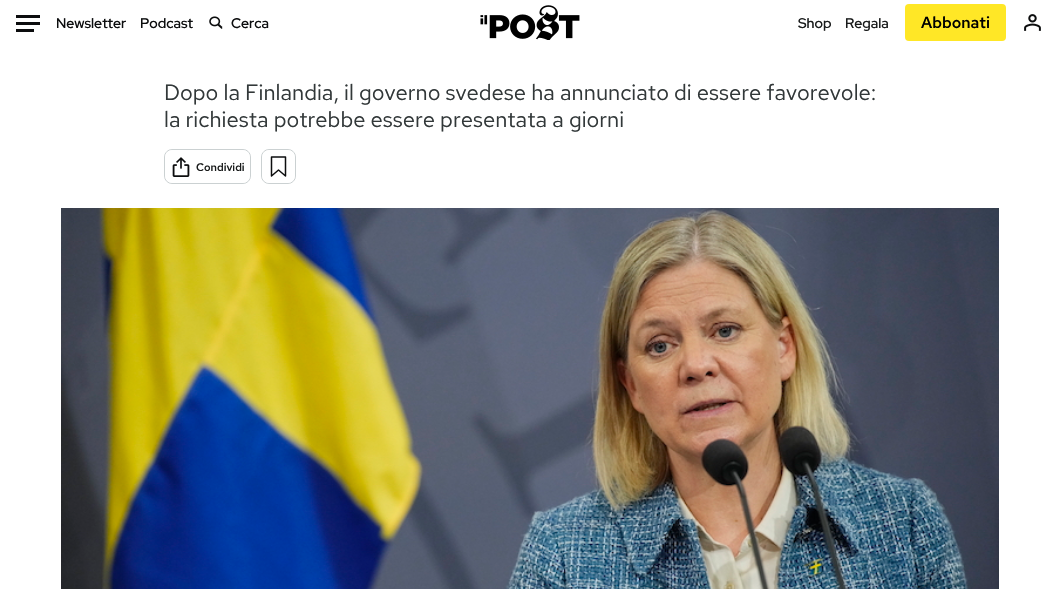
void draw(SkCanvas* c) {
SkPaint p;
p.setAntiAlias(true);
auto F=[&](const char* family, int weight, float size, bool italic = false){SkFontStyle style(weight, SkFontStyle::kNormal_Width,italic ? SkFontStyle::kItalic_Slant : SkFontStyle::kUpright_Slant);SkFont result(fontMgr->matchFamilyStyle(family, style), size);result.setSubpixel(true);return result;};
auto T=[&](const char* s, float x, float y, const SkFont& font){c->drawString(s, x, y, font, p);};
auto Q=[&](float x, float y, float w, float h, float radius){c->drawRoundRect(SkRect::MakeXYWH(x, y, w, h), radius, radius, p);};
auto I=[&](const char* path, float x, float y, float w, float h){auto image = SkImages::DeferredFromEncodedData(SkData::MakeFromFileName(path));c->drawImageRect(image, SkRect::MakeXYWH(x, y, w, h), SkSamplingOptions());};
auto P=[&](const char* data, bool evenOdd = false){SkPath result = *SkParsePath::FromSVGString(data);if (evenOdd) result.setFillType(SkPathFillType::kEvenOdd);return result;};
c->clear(0xffffffff);
I("1.png",16,15,24,17);
auto f1 = F("Red Hat Display",600,14);
p.setColor(0xff0c0d0e);
T("Newsletter",56,28,f1);
T("Podcast",140,28,f1);
I("2.png",209,16,14,13);
T("Cerca",231,28,f1);
I("3.png",480,5,100,35);
p.setColor(0xff191b1b);
T("Shop",798,28,f1);
T("Regala",845,28,f1);
p.setColor(0xffffe726);
Q(905,4,101,37,4);
auto f2 = F("Red Hat Text",600,16);
p.setColor(0xff000000);
T("Abbonati",921,28,f2);
I("4.png",1024,14,17,17);
auto f3 = F("Red Hat Text",400,22);
p.setColor(0xff323839);
T("Dopo la Finlandia, il governo svedese ha annunciato di essere favorevole:",164,100,f3);
T("la richiesta potrebbe essere presentata a giorni",164,127,f3);
p.setStroke(true);
p.setStrokeWidth(1);
p.setColor(0xffcbd1d2);
c->drawRoundRect(SkRect::MakeXYWH(164.5,149.5,86,34),7.5,7.5,p);
p.setStroke(false);
p.setColor(0xffffffff);
Q(165,150,85,33,8);
I("5.png",172,157,18,20);
auto f4 = F("Red Hat Text",600,11);
p.setColor(0xff191b1b);
T("Condividi",196,171,f4);
p.setStroke(true);
p.setColor(0xffcbd1d2);
c->drawRoundRect(SkRect::MakeXYWH(261.5,149.5,34,34),7.5,7.5,p);
p.setStroke(false);
p.setColor(0xffffffff);
Q(262,150,33,33,8);
p.setStroke(true);
p.setStrokeWidth(1.5);
p.setStrokeJoin(SkPaint::kRound_Join);
p.setColor(0xff0c0d0e);
c->drawPath(P("M271.5 176v-19h14v19l-7-6z"),p);
I("6.png",61,208,938,381);
}
